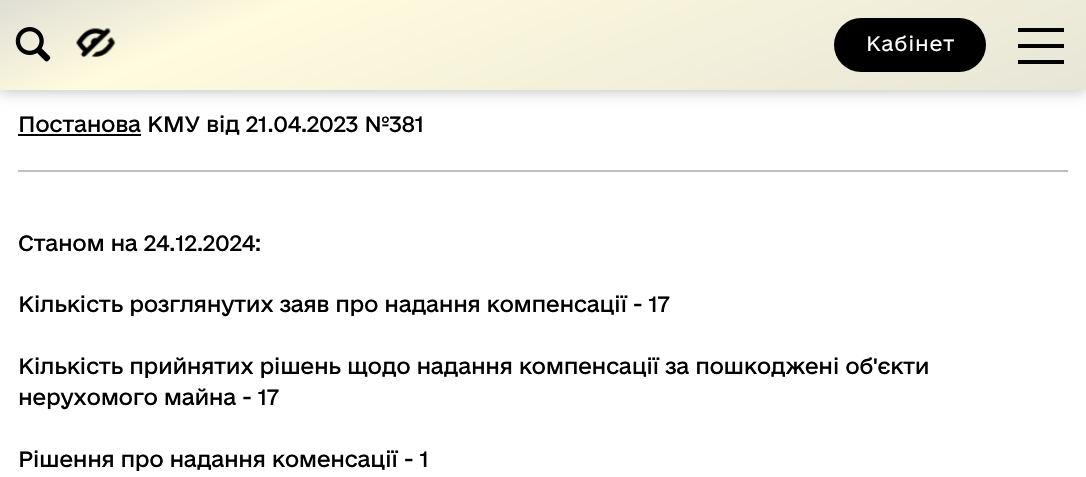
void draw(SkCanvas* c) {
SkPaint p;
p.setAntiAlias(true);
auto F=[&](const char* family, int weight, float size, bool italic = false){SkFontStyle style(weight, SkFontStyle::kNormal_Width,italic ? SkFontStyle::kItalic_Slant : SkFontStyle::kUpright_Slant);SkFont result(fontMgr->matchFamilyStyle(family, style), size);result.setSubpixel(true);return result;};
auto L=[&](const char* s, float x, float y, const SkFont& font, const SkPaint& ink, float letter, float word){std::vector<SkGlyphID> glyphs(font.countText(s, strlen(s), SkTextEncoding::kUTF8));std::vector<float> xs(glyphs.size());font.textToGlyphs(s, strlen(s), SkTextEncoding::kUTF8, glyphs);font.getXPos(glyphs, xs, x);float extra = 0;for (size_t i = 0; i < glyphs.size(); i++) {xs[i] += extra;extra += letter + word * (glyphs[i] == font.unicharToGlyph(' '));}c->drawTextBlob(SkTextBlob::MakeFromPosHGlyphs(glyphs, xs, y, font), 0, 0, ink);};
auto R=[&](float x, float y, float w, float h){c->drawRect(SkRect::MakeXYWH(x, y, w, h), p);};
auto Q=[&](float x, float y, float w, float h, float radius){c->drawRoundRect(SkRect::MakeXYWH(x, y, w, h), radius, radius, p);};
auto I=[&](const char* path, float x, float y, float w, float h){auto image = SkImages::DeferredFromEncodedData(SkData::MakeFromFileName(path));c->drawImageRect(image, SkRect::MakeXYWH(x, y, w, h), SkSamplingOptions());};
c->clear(0xffffffff);
p.setColor(0x33000000);
p.setMaskFilter(SkMaskFilter::MakeBlur(kNormal_SkBlurStyle, 6));
c->drawRect(SkRect::MakeXYWH(0,3,1086,90),p);
p.setMaskFilter(nullptr);
{
const SkColor colors[] = {0xffdfded5,0xfffffbde,0xffdfded5};
const float stops[] = {0,.18,1};
const SkPoint ends[] = {{490,-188}, {704,368}};
p.setShader(SkGradientShader::MakeLinear(ends, colors, stops, 3, SkTileMode::kClamp));
p.setAlpha(255);
}
R(0,0,1086,90);
I("1.png",15,27,36,35);
I("2.png",76,28,40,30);
p.setShader(nullptr);
p.setColor(0xff000000);
Q(834,18,152,54,27);
auto f1 = F("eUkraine",300,19.5);
p.setColor(0xffffffff);
L("Кабінет",866,51,f1,p,.75,0);
p.setColor(0xff000000);
R(1018,28,46,4);
R(1018,44,46,4);
R(1018,60,46,4);
R(18,134,123,2);
auto f2 = F("eUkraine",400,21);
L("Постанова КМУ від 21.04.2023 №381",18,132,f2,p,-.42,0);
p.setColor(0xffbfbfbf);
R(18,170,1050,2);
p.setColor(0xff000000);
L("Станом на 24.12.2024:",18,251,f2,p,-.42,0);
L("Кількість розглянутих заяв про надання компенсації - 17",18,312,f2,p,-.42,0);
L("Кількість прийнятих рішень щодо надання компенсації за пошкоджені об'єкти",18,374,f2,p,-.42,0);
L("нерухомого майна - 17",18,405,f2,p,-.42,0);
L("Рішення про надання коменсації - 1",18,467,f2,p,-.42,0);
}
